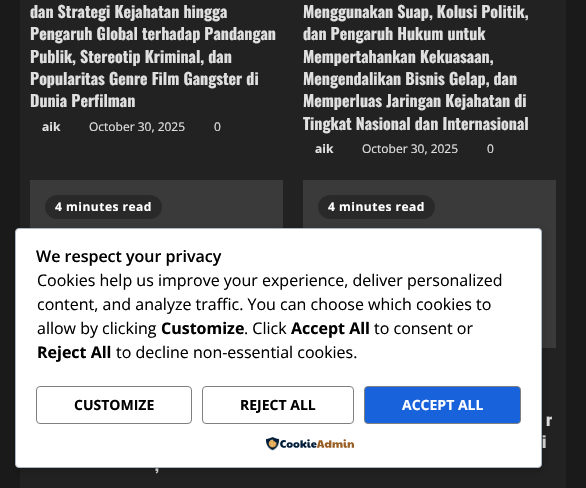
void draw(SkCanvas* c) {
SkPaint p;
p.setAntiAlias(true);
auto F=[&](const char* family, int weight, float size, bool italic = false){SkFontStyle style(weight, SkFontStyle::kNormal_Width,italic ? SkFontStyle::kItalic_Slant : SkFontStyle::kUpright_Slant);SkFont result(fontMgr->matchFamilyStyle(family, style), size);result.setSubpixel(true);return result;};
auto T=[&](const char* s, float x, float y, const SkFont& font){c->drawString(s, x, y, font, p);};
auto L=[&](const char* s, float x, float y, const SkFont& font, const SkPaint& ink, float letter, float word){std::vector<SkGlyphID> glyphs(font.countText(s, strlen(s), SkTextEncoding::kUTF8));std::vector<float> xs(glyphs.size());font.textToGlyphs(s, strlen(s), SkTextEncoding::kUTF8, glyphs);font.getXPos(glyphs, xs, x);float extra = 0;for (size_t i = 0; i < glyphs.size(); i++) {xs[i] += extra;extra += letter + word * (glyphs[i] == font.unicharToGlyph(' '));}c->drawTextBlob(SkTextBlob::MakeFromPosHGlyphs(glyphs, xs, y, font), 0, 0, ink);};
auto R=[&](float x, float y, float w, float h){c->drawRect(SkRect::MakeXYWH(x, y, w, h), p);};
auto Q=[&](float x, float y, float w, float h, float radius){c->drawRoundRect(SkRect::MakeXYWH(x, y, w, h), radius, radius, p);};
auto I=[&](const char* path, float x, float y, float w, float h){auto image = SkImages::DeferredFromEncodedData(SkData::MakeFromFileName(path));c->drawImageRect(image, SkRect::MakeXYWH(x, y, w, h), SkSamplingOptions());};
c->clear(0xff1a1a1a);
p.setColor(0xff222222);
R(20,0,546,488);
auto f1 = F("Oswald",700,16);
p.setColor(0xffe0e0e0);
T("dan Strategi Kejahatan hingga",30,18,f1);
T("Pengaruh Global terhadap Pandangan",30,40,f1);
T("Publik, Stereotip Kriminal, dan",30,63,f1);
T("Popularitas Genre Film Gangster di",30,85,f1);
T("Dunia Perfilman",30,107,f1);
auto f2 = F("Open Sans",700,12);
T("aik",42,131,f2);
auto f3 = F("Open Sans",400,12);
T("October 30, 2025",89,131,f3);
T("0",214,131,f3);
T("Menggunakan Suap, Kolusi Politik,",303,18,f1);
T("dan Pengaruh Hukum untuk",303,40,f1);
T("Mempertahankan Kekuasaan,",303,63,f1);
T("Mengendalikan Bisnis Gelap, dan",303,85,f1);
T("Memperluas Jaringan Kejahatan di",303,107,f1);
T("Tingkat Nasional dan Internasional",303,130,f1);
T("aik",315,153,f2);
T("October 30, 2025",362,153,f3);
T("0",487,153,f3);
p.setColor(0xff3a3a3a);
R(30,180,253,48);
p.setColor(0xff292929);
Q(45,195,117,24,12);
p.setColor(0xffffffff);
L("4 minutes read",55,211,f2,p,.5,0);
p.setColor(0xffe0e0e0);
T(",",155,471,f1);
p.setColor(0xff3a3a3a);
R(303,180,253,168);
p.setColor(0xff292929);
Q(318,195,117,24,12);
p.setColor(0xffffffff);
L("4 minutes read",328,211,f2,p,.5,0);
p.setColor(0xffe0e0e0);
T("r",546,426,f1);
T("i",542,448,f1);
p.setColor(0x33000000);
p.setMaskFilter(SkMaskFilter::MakeBlur(kNormal_SkBlurStyle, 5));
c->drawRoundRect(SkRect::MakeXYWH(16,231,527,240),4,4,p);
p.setMaskFilter(nullptr);
p.setColor(0xffffffff);
c->drawRoundRect(SkRect::MakeXYWH(15.5,228.5,526,239),3.5,3.5,p);
p.setStroke(true);
p.setStrokeWidth(1);
p.setColor(0xffabb8c3);
c->drawRoundRect(SkRect::MakeXYWH(15.5,228.5,526,239),3.5,3.5,p);
auto f4 = F("Open Sans",600,16);
p.setStroke(false);
p.setColor(0xff000000);
T("We respect your privacy",36,262,f4);
auto f5 = F("Open Sans",400,16);
T("Cookies help us improve your experience, deliver personalized",37,286,f5);
T("content, and analyze traffic. You can choose which cookies to",37,310,f5);
T("allow by clicking",37,334,f5);
auto f6 = F("Open Sans",700,16);
T("Customize",161,334,f6);
T(". Click",244,334,f5);
T("Accept All",291,334,f6);
T("to consent or",374,334,f5);
T("Reject All",37,358,f6);
T("to decline non-essential cookies.",116,358,f5);
p.setStroke(true);
p.setColor(0xff808080);
c->drawRoundRect(SkRect::MakeXYWH(36.5,386.5,155,37),3.5,3.5,p);
auto f7 = F("Open Sans",700,14);
p.setStroke(false);
p.setColor(0xff000000);
T("CUSTOMIZE",74,410,f7);
p.setStroke(true);
p.setColor(0xff808080);
c->drawRoundRect(SkRect::MakeXYWH(202.5,386.5,151,37),3.5,3.5,p);
p.setStroke(false);
p.setColor(0xff000000);
T("REJECT ALL",240,410,f7);
p.setColor(0xff1863dc);
c->drawRoundRect(SkRect::MakeXYWH(364.5,386.5,156,37),3.5,3.5,p);
p.setStroke(true);
p.setColor(0xff808080);
c->drawRoundRect(SkRect::MakeXYWH(364.5,386.5,156,37),3.5,3.5,p);
p.setStroke(false);
p.setColor(0xffffffff);
T("ACCEPT ALL",402,410,f7);
I("1.png",266,437,88,14);
}
